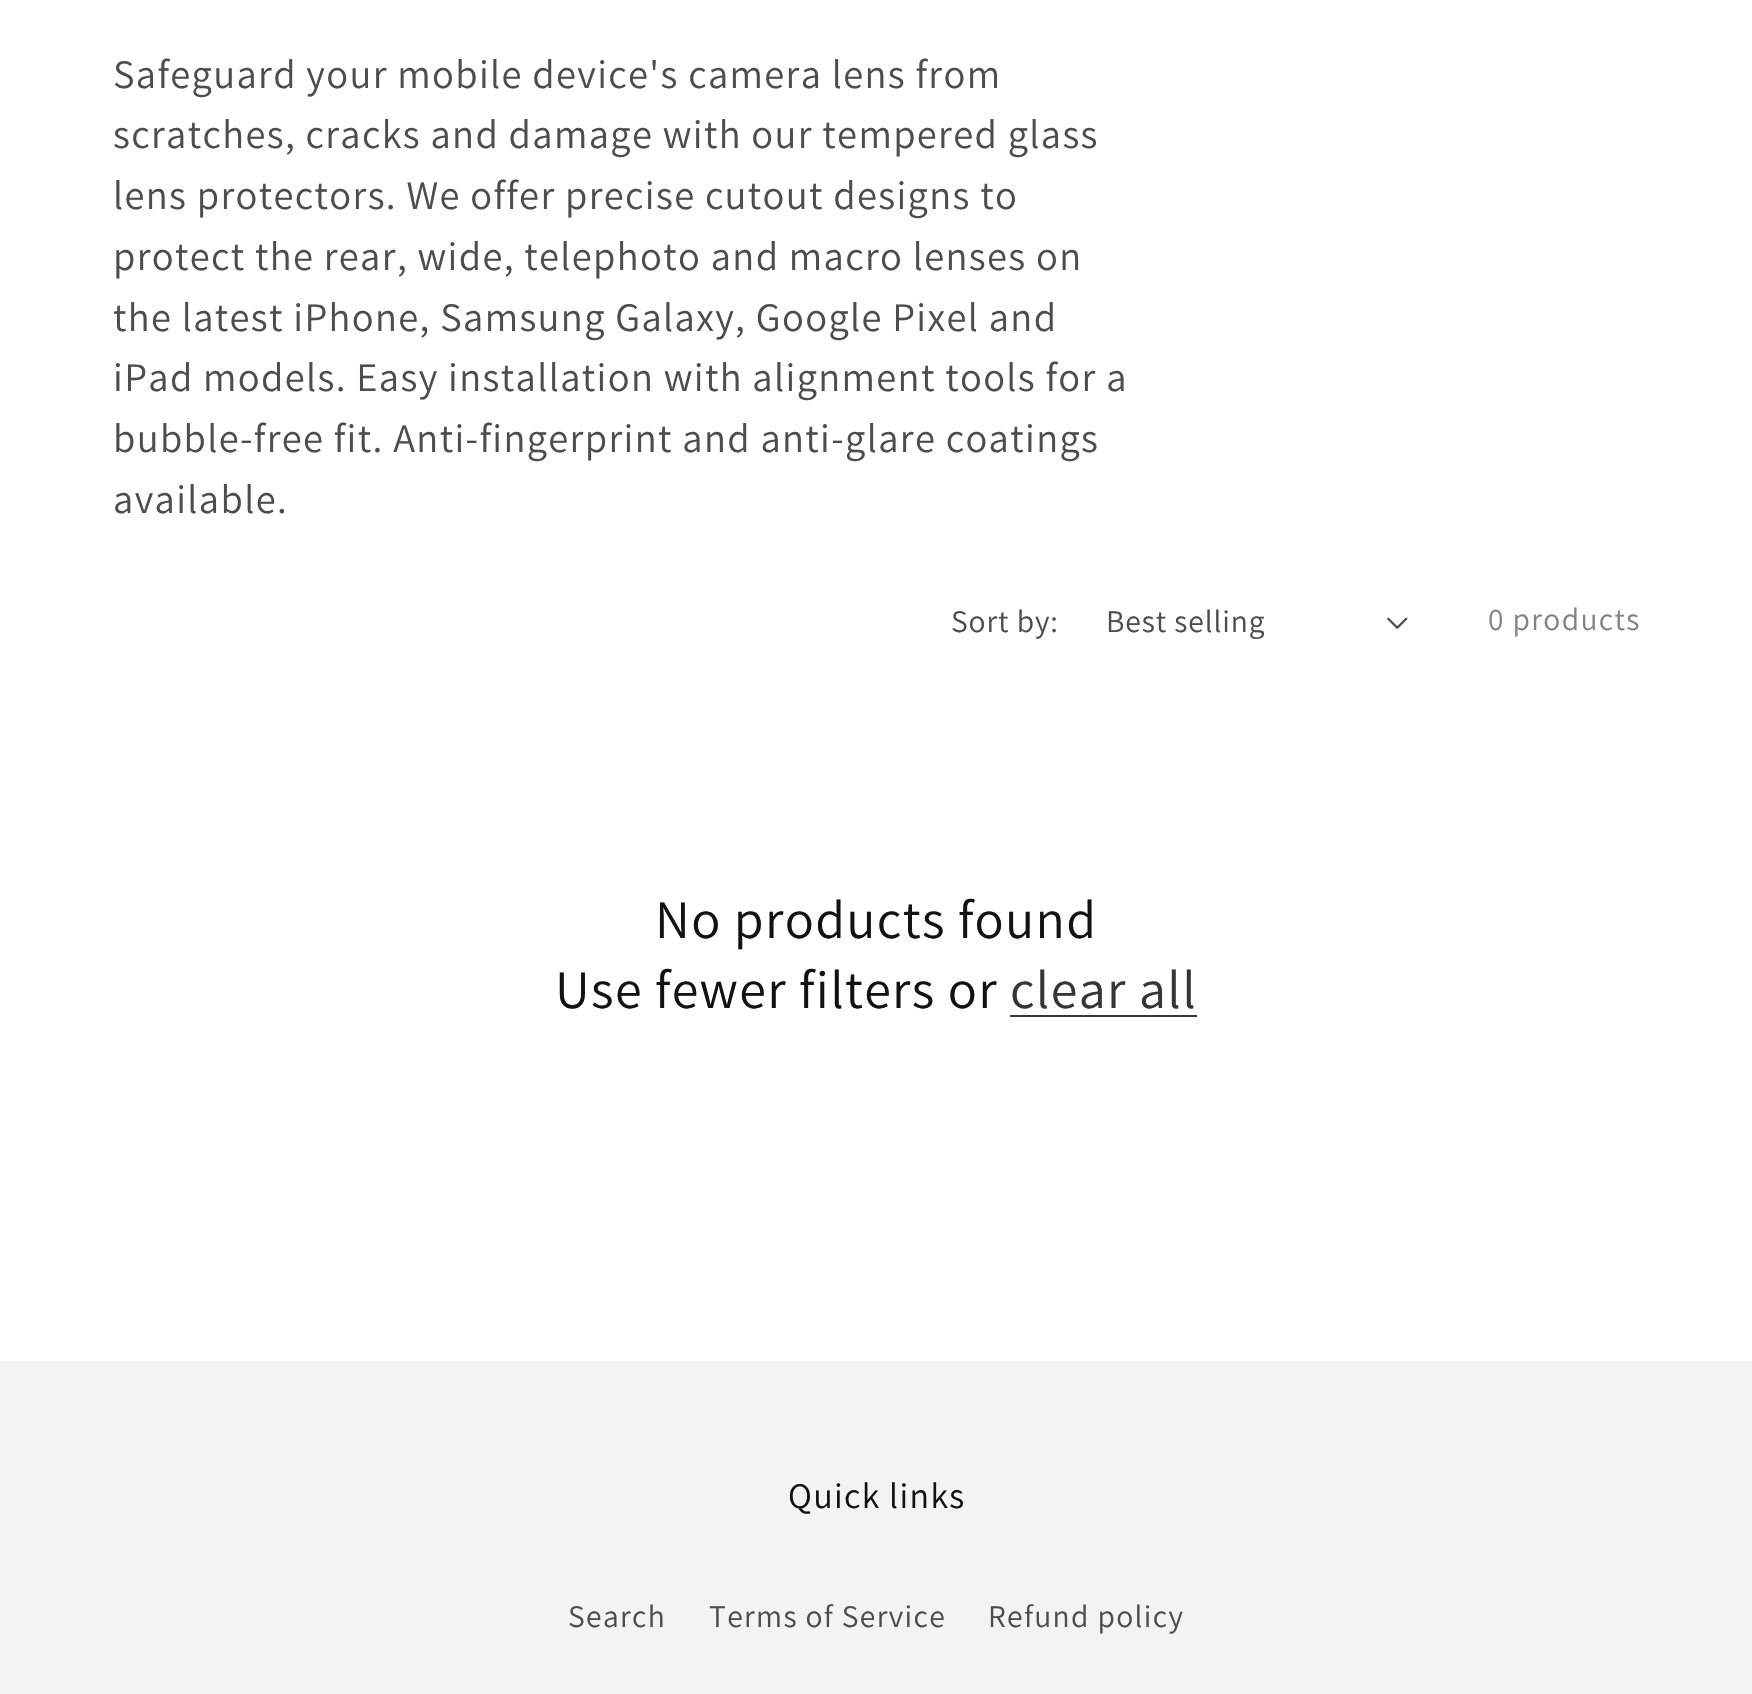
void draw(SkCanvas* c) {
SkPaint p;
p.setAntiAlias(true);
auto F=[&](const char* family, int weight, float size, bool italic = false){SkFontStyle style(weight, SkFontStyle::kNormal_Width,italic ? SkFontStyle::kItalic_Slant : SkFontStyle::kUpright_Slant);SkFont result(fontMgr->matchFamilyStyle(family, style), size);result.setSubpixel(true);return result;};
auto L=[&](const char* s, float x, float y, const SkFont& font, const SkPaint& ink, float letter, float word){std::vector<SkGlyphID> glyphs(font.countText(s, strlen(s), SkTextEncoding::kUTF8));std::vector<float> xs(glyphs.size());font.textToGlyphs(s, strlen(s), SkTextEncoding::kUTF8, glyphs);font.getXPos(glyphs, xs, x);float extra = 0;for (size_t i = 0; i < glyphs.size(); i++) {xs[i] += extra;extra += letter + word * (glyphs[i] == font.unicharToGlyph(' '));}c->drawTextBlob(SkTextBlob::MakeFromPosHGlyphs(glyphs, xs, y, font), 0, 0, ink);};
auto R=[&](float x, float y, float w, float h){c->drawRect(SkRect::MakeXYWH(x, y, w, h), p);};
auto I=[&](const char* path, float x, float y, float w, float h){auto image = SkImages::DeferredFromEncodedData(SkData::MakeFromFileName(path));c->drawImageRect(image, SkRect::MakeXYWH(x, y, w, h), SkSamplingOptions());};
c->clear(0xffffffff);
auto f1 = F("Assistant",400,40.5);
p.setColor(0xff4d4d4d);
L("Safeguard your mobile device's camera lens from",113,88,f1,p,1.35,0);
L("scratches, cracks and damage with our tempered glass",113,148,f1,p,1.35,0);
L("lens protectors. We offer precise cutout designs to",113,209,f1,p,1.35,0);
L("protect the rear, wide, telephoto and macro lenses on",113,270,f1,p,1.35,0);
L("the latest iPhone, Samsung Galaxy, Google Pixel and",113,331,f1,p,1.35,0);
L("iPad models. Easy installation with alignment tools for a",113,391,f1,p,1.35,0);
L("bubble-free fit. Anti-fingerprint and anti-glare coatings",113,452,f1,p,1.35,0);
L("available.",113,513,f1,p,1.35,0);
auto f2 = F("Assistant",400,31.5);
L("Sort by:",951,632,f2,p,.9,0);
L("Best selling",1106,632,f2,p,.9,0);
I("1.png",1387,617,21,12);
p.setColor(0xff838383);
L("0 products",1488,630,f2,p,1.35,0);
auto f3 = F("Assistant",400,54);
p.setColor(0xff121212);
L("No products found",655,938,f3,p,1.35,0);
L("Use fewer filters or",555,1008,f3,p,1.35,0);
p.setColor(0xff363636);
L("clear all",1010,1008,f3,p,1.35,0);
R(1010,1015,187,2);
p.setColor(0xfff3f3f3);
R(0,1361,1752,333);
auto f4 = F("Assistant",400,36);
p.setColor(0xff121212);
L("Quick links",788,1508,f4,p,1.35,0);
p.setColor(0xff4d4d4d);
L("Search",568,1627,f2,p,1.35,0);
L("Terms of Service",709,1627,f2,p,1.35,0);
L("Refund policy",988,1627,f2,p,1.35,0);
}
